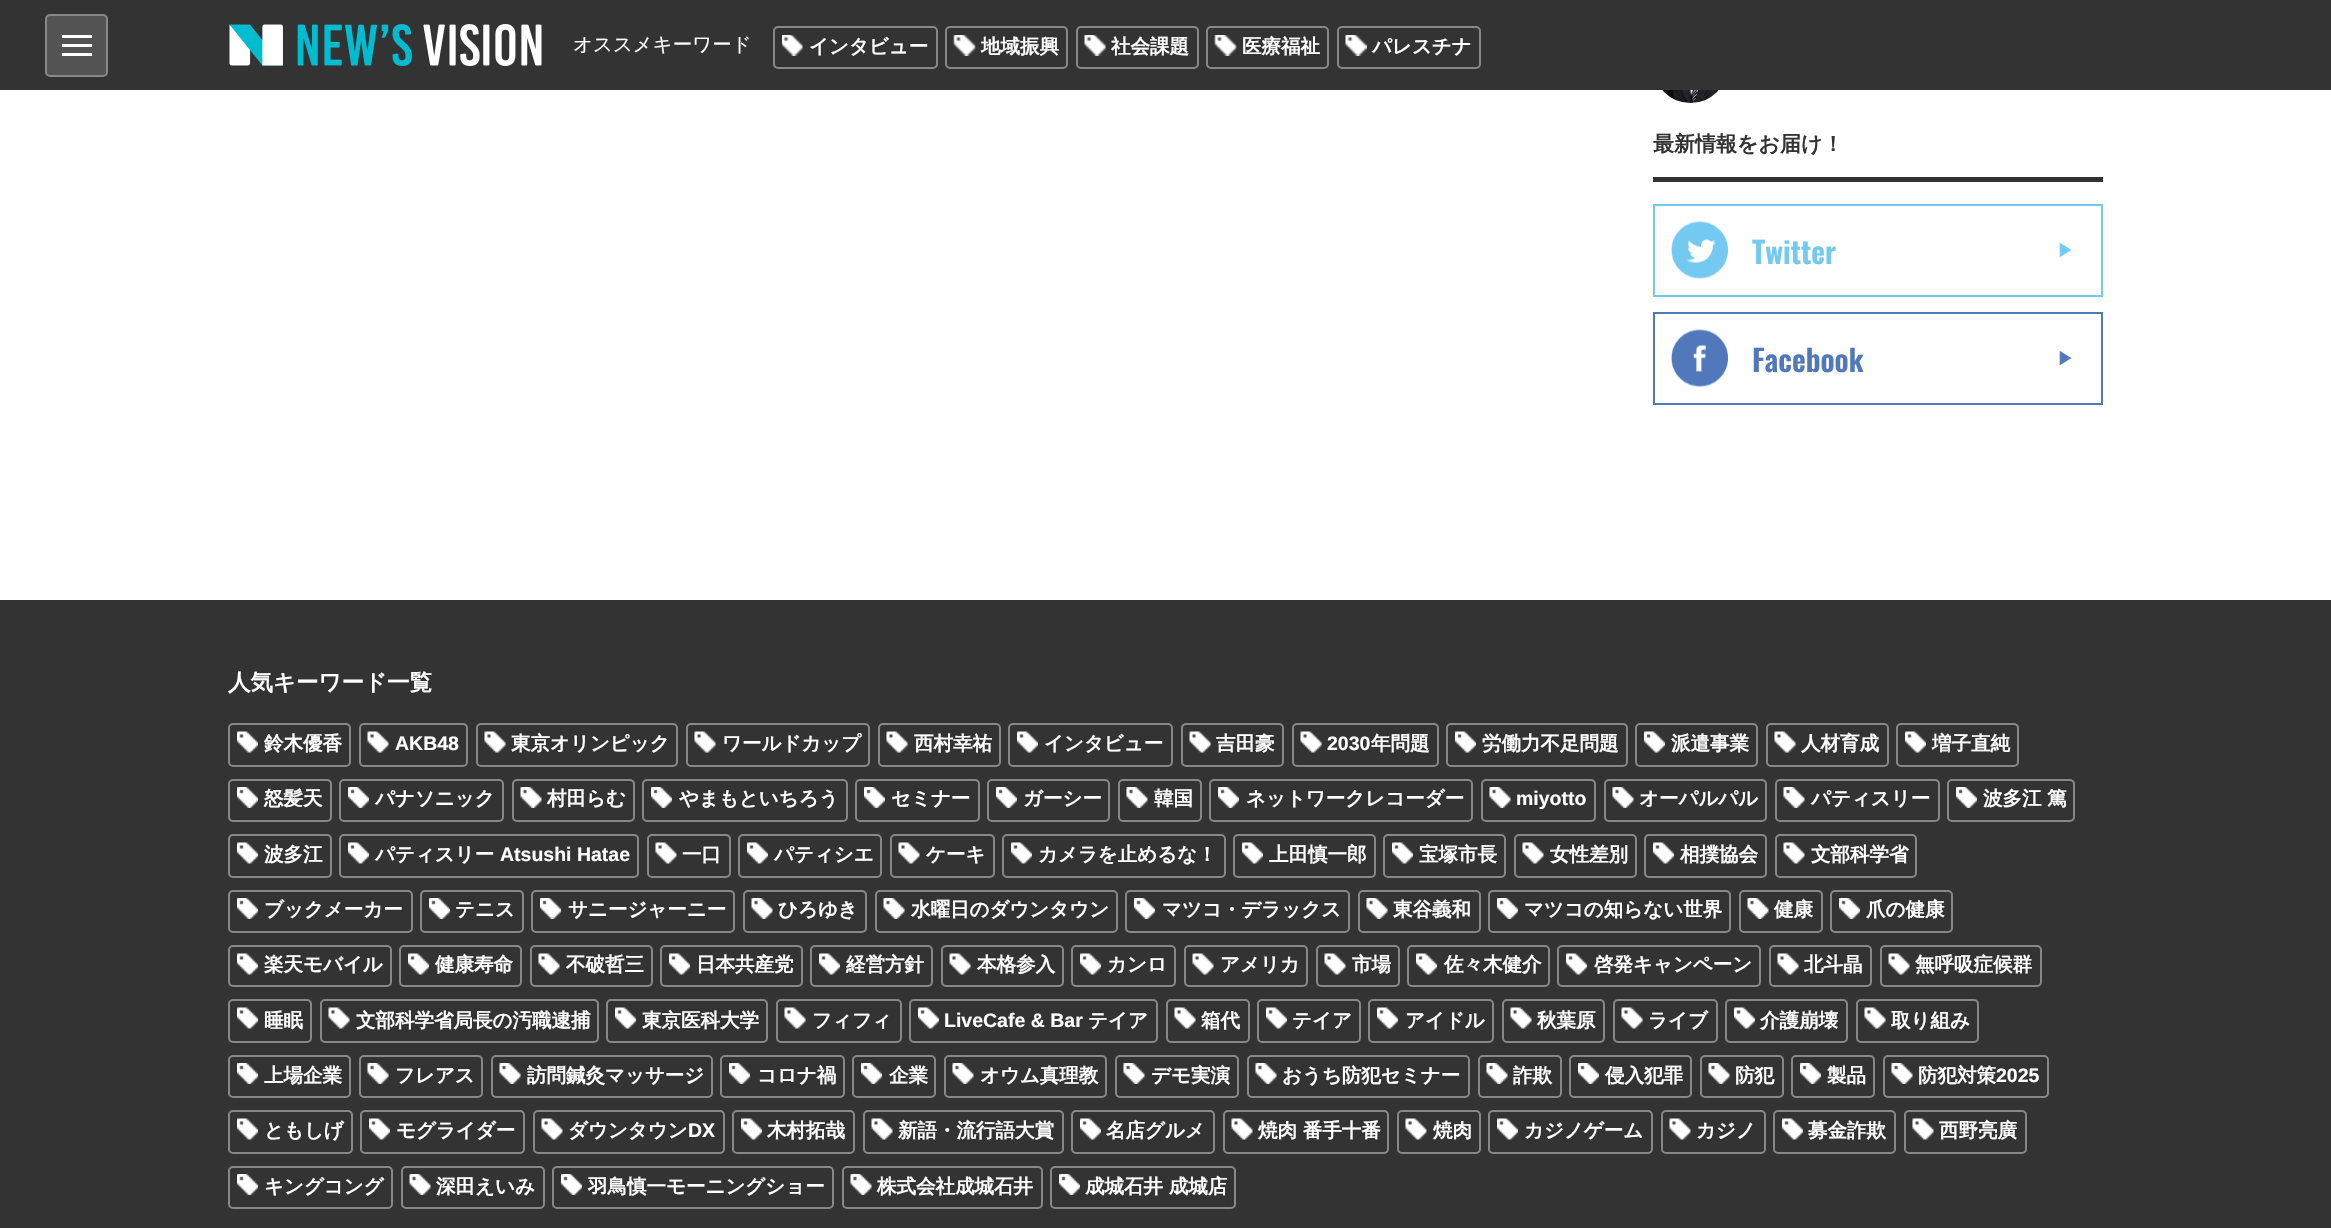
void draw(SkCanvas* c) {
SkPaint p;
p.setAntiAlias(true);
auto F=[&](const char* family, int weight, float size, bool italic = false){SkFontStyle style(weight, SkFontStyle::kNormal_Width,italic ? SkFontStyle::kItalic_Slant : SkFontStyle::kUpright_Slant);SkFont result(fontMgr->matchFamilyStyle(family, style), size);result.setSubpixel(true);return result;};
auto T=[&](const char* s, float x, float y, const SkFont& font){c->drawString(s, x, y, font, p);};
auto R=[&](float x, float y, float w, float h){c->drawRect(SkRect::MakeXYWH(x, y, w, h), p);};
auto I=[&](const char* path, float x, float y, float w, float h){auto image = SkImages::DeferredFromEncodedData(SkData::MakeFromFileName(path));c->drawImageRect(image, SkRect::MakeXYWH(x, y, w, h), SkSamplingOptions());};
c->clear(0xffffffff);
p.setColor(0xff333333);
R(0,0,2331,90);
p.setColor(0xff535353);
c->drawRoundRect(SkRect::MakeXYWH(46,15,61,61),4,4,p);
p.setStroke(true);
p.setStrokeWidth(2);
p.setColor(0xff888888);
c->drawRoundRect(SkRect::MakeXYWH(46,15,61,61),4,4,p);
p.setStroke(false);
p.setColor(0xffffffff);
R(62,35,30,3);
R(62,44,30,3);
R(62,53,30,3);
I("1.png",229,24,313,42);
auto f1 = F("WenQuanYi Zen Hei",500,19.5);
T("オススメキーワード",573,51,f1);
p.setStroke(true);
p.setColor(0xff888888);
c->drawRoundRect(SkRect::MakeXYWH(774,27,163,41),4,4,p);
I("2.png",782,35,21,21);
auto f2 = F("WenQuanYi Zen Hei",700,19.5);
p.setStroke(false);
p.setColor(0xffffffff);
T("インタビュー",809,53,f2);
p.setStroke(true);
p.setColor(0xff888888);
c->drawRoundRect(SkRect::MakeXYWH(946,27,121,41),4,4,p);
I("3.png",953,35,23,21);
p.setStroke(false);
p.setColor(0xffffffff);
T("地域振興",981,53,f2);
p.setStroke(true);
p.setColor(0xff888888);
c->drawRoundRect(SkRect::MakeXYWH(1077,27,121,41),4,4,p);
I("4.png",1084,35,22,21);
p.setStroke(false);
p.setColor(0xffffffff);
T("社会課題",1111,53,f2);
p.setStroke(true);
p.setColor(0xff888888);
c->drawRoundRect(SkRect::MakeXYWH(1207,27,121,41),4,4,p);
I("3.png",1214,35,23,21);
p.setStroke(false);
p.setColor(0xffffffff);
T("医療福祉",1242,53,f2);
p.setStroke(true);
p.setColor(0xff888888);
c->drawRoundRect(SkRect::MakeXYWH(1338,27,142,41),4,4,p);
I("5.png",1345,35,22,21);
p.setStroke(false);
p.setColor(0xffffffff);
T("パレスチナ",1372,53,f2);
I("6.png",1662,90,57,13);
p.setColor(0xff333333);
R(1653,177,450,5);
auto f3 = F("WenQuanYi Zen Hei",700,21);
T("最新情報をお届け！",1653,151,f3);
p.setStroke(true);
p.setColor(0xff73c9ef);
c->drawRect(SkRect::MakeXYWH(1654,205,448,91),p);
I("7.png",1671,221,57,58);
auto f4 = F("Oswald",600,30);
p.setStroke(false);
T("Twitter",1752,264,f4);
I("8.png",2059,242,13,16);
p.setStroke(true);
p.setColor(0xff5078bb);
c->drawRect(SkRect::MakeXYWH(1654,313,448,91),p);
I("9.png",1671,329,57,58);
p.setStroke(false);
T("Facebook",1752,372,f4);
I("10.png",2059,350,13,16);
p.setColor(0xff333333);
R(0,600,2331,628);
auto f5 = F("WenQuanYi Zen Hei",700,22.5);
p.setColor(0xffffffff);
T("人気キーワード一覧",228,690,f5);
p.setStroke(true);
p.setColor(0xff888888);
c->drawRoundRect(SkRect::MakeXYWH(229,724,121,42),4,4,p);
I("11.png",237,731,21,22);
p.setStroke(false);
p.setColor(0xffffffff);
T("鈴木優香",264,750,f2);
p.setStroke(true);
p.setColor(0xff888888);
c->drawRoundRect(SkRect::MakeXYWH(360,724,107,42),4,4,p);
I("12.png",367,731,22,22);
auto f6 = F("Liberation Sans",700,19.5);
p.setStroke(false);
p.setColor(0xffffffff);
T("AKB48",395,750,f6);
p.setStroke(true);
p.setColor(0xff888888);
c->drawRoundRect(SkRect::MakeXYWH(477,724,200,42),4,4,p);
I("13.png",484,731,22,22);
p.setStroke(false);
p.setColor(0xffffffff);
T("東京オリンピック",511,750,f2);
p.setStroke(true);
p.setColor(0xff888888);
c->drawRoundRect(SkRect::MakeXYWH(687,724,182,42),4,4,p);
I("12.png",694,731,22,22);
p.setStroke(false);
p.setColor(0xffffffff);
T("ワールドカップ",722,750,f2);
p.setStroke(true);
p.setColor(0xff888888);
c->drawRoundRect(SkRect::MakeXYWH(879,724,121,42),4,4,p);
I("13.png",886,731,22,22);
p.setStroke(false);
p.setColor(0xffffffff);
T("西村幸祐",914,750,f2);
p.setStroke(true);
p.setColor(0xff888888);
c->drawRoundRect(SkRect::MakeXYWH(1009,724,163,42),4,4,p);
I("11.png",1017,731,21,22);
p.setStroke(false);
p.setColor(0xffffffff);
T("インタビュー",1044,750,f2);
p.setStroke(true);
p.setColor(0xff888888);
c->drawRoundRect(SkRect::MakeXYWH(1182,724,101,42),4,4,p);
I("12.png",1189,731,22,22);
p.setStroke(false);
p.setColor(0xffffffff);
T("吉田豪",1216,750,f2);
p.setStroke(true);
p.setColor(0xff888888);
c->drawRoundRect(SkRect::MakeXYWH(1293,724,145,42),4,4,p);
I("12.png",1300,731,22,22);
p.setStroke(false);
p.setColor(0xffffffff);
T("2030",1327,750,f6);
T("年問題",1371,750,f2);
p.setStroke(true);
p.setColor(0xff888888);
c->drawRoundRect(SkRect::MakeXYWH(1447,724,180,42),4,4,p);
I("11.png",1455,731,21,22);
p.setStroke(false);
p.setColor(0xffffffff);
T("労働力不足問題",1482,750,f2);
p.setStroke(true);
p.setColor(0xff888888);
c->drawRoundRect(SkRect::MakeXYWH(1636,724,121,42),4,4,p);
I("11.png",1644,731,21,22);
p.setStroke(false);
p.setColor(0xffffffff);
T("派遣事業",1671,750,f2);
p.setStroke(true);
p.setColor(0xff888888);
c->drawRoundRect(SkRect::MakeXYWH(1767,724,121,42),4,4,p);
I("13.png",1774,731,22,22);
p.setStroke(false);
p.setColor(0xffffffff);
T("人材育成",1801,750,f2);
p.setStroke(true);
p.setColor(0xff888888);
c->drawRoundRect(SkRect::MakeXYWH(1897,724,121,42),4,4,p);
I("14.png",1905,731,21,22);
p.setStroke(false);
p.setColor(0xffffffff);
T("増子直純",1932,750,f2);
p.setStroke(true);
p.setColor(0xff888888);
c->drawRoundRect(SkRect::MakeXYWH(229,780,102,41),4,4,p);
I("15.png",237,787,21,21);
p.setStroke(false);
p.setColor(0xffffffff);
T("怒髪天",264,805,f2);
p.setStroke(true);
p.setColor(0xff888888);
c->drawRoundRect(SkRect::MakeXYWH(340,780,163,41),4,4,p);
I("16.png",348,787,21,21);
p.setStroke(false);
p.setColor(0xffffffff);
T("パナソニック",375,805,f2);
p.setStroke(true);
p.setColor(0xff888888);
c->drawRoundRect(SkRect::MakeXYWH(513,780,121,41),4,4,p);
I("17.png",520,787,22,21);
p.setStroke(false);
p.setColor(0xffffffff);
T("村田らむ",547,805,f2);
p.setStroke(true);
p.setColor(0xff888888);
c->drawRoundRect(SkRect::MakeXYWH(643,780,204,41),4,4,p);
I("15.png",651,787,21,21);
p.setStroke(false);
p.setColor(0xffffffff);
T("やまもといちろう",679,805,f2);
p.setStroke(true);
p.setColor(0xff888888);
c->drawRoundRect(SkRect::MakeXYWH(856,780,123,41),4,4,p);
I("15.png",864,787,21,21);
p.setStroke(false);
p.setColor(0xffffffff);
T("セミナー",891,805,f2);
p.setStroke(true);
p.setColor(0xff888888);
c->drawRoundRect(SkRect::MakeXYWH(988,780,121,41),4,4,p);
I("15.png",996,787,21,21);
p.setStroke(false);
p.setColor(0xffffffff);
T("ガーシー",1023,805,f2);
p.setStroke(true);
p.setColor(0xff888888);
c->drawRoundRect(SkRect::MakeXYWH(1119,780,82,41),4,4,p);
I("17.png",1126,787,22,21);
p.setStroke(false);
p.setColor(0xffffffff);
T("韓国",1154,805,f2);
p.setStroke(true);
p.setColor(0xff888888);
c->drawRoundRect(SkRect::MakeXYWH(1210,780,262,41),4,4,p);
I("16.png",1218,787,21,21);
p.setStroke(false);
p.setColor(0xffffffff);
T("ネットワークレコーダー",1246,805,f2);
p.setStroke(true);
p.setColor(0xff888888);
c->drawRoundRect(SkRect::MakeXYWH(1482,780,113,41),4,4,p);
I("17.png",1489,787,22,21);
p.setStroke(false);
p.setColor(0xffffffff);
T("miyotto",1516,805,f6);
p.setStroke(true);
p.setColor(0xff888888);
c->drawRoundRect(SkRect::MakeXYWH(1605,780,161,41),4,4,p);
I("18.png",1612,787,22,21);
p.setStroke(false);
p.setColor(0xffffffff);
T("オーパルパル",1639,805,f2);
p.setStroke(true);
p.setColor(0xff888888);
c->drawRoundRect(SkRect::MakeXYWH(1776,780,163,41),4,4,p);
I("18.png",1783,787,22,21);
p.setStroke(false);
p.setColor(0xffffffff);
T("パティスリー",1811,805,f2);
p.setStroke(true);
p.setColor(0xff888888);
c->drawRoundRect(SkRect::MakeXYWH(1948,780,126,41),4,4,p);
I("16.png",1956,787,21,21);
p.setStroke(false);
p.setColor(0xffffffff);
T("波多江 篤",1983,805,f2);
p.setStroke(true);
p.setColor(0xff888888);
c->drawRoundRect(SkRect::MakeXYWH(229,835,102,42),4,4,p);
I("11.png",237,842,21,22);
p.setStroke(false);
p.setColor(0xffffffff);
T("波多江",264,861,f2);
p.setStroke(true);
p.setColor(0xff888888);
c->drawRoundRect(SkRect::MakeXYWH(340,835,298,42),4,4,p);
I("14.png",348,842,21,22);
p.setStroke(false);
p.setColor(0xffffffff);
T("パティスリー",375,861,f2);
T("Atsushi Hatae",500,861,f6);
p.setStroke(true);
p.setColor(0xff888888);
c->drawRoundRect(SkRect::MakeXYWH(648,835,82,42),4,4,p);
I("12.png",655,842,22,22);
p.setStroke(false);
p.setColor(0xffffffff);
T("一口",682,861,f2);
p.setStroke(true);
p.setColor(0xff888888);
c->drawRoundRect(SkRect::MakeXYWH(739,835,142,42),4,4,p);
I("14.png",747,842,21,22);
p.setStroke(false);
p.setColor(0xffffffff);
T("パティシエ",774,861,f2);
p.setStroke(true);
p.setColor(0xff888888);
c->drawRoundRect(SkRect::MakeXYWH(891,835,103,42),4,4,p);
I("13.png",898,842,22,22);
p.setStroke(false);
p.setColor(0xffffffff);
T("ケーキ",926,861,f2);
p.setStroke(true);
p.setColor(0xff888888);
c->drawRoundRect(SkRect::MakeXYWH(1003,835,222,42),4,4,p);
I("11.png",1011,842,21,22);
p.setStroke(false);
p.setColor(0xffffffff);
T("カメラを止めるな！",1038,861,f2);
p.setStroke(true);
p.setColor(0xff888888);
c->drawRoundRect(SkRect::MakeXYWH(1234,835,141,42),4,4,p);
I("14.png",1242,842,21,22);
p.setStroke(false);
p.setColor(0xffffffff);
T("上田慎一郎",1269,861,f2);
p.setStroke(true);
p.setColor(0xff888888);
c->drawRoundRect(SkRect::MakeXYWH(1384,835,121,42),4,4,p);
I("11.png",1392,842,21,22);
p.setStroke(false);
p.setColor(0xffffffff);
T("宝塚市長",1419,861,f2);
p.setStroke(true);
p.setColor(0xff888888);
c->drawRoundRect(SkRect::MakeXYWH(1515,835,121,42),4,4,p);
I("13.png",1522,842,22,22);
p.setStroke(false);
p.setColor(0xffffffff);
T("女性差別",1550,861,f2);
p.setStroke(true);
p.setColor(0xff888888);
c->drawRoundRect(SkRect::MakeXYWH(1645,835,121,42),4,4,p);
I("11.png",1653,842,21,22);
p.setStroke(false);
p.setColor(0xffffffff);
T("相撲協会",1680,861,f2);
p.setStroke(true);
p.setColor(0xff888888);
c->drawRoundRect(SkRect::MakeXYWH(1776,835,140,42),4,4,p);
I("13.png",1783,842,22,22);
p.setStroke(false);
p.setColor(0xffffffff);
T("文部科学省",1811,861,f2);
p.setStroke(true);
p.setColor(0xff888888);
c->drawRoundRect(SkRect::MakeXYWH(229,891,183,41),4,4,p);
I("15.png",237,898,21,21);
p.setStroke(false);
p.setColor(0xffffffff);
T("ブックメーカー",264,916,f2);
p.setStroke(true);
p.setColor(0xff888888);
c->drawRoundRect(SkRect::MakeXYWH(421,891,102,41),4,4,p);
I("16.png",429,898,21,21);
p.setStroke(false);
p.setColor(0xffffffff);
T("テニス",455,916,f2);
p.setStroke(true);
p.setColor(0xff888888);
c->drawRoundRect(SkRect::MakeXYWH(532,891,202,41),4,4,p);
I("15.png",540,898,21,21);
p.setStroke(false);
p.setColor(0xffffffff);
T("サニージャーニー",568,916,f2);
p.setStroke(true);
p.setColor(0xff888888);
c->drawRoundRect(SkRect::MakeXYWH(744,891,122,41),4,4,p);
I("19.png",751,898,22,21);
p.setStroke(false);
p.setColor(0xffffffff);
T("ひろゆき",778,916,f2);
p.setStroke(true);
p.setColor(0xff888888);
c->drawRoundRect(SkRect::MakeXYWH(876,891,241,41),4,4,p);
I("18.png",883,898,22,21);
p.setStroke(false);
p.setColor(0xffffffff);
T("水曜日のダウンタウン",911,916,f2);
p.setStroke(true);
p.setColor(0xff888888);
c->drawRoundRect(SkRect::MakeXYWH(1126,891,223,41),4,4,p);
I("16.png",1134,898,21,21);
p.setStroke(false);
p.setColor(0xffffffff);
T("マツコ・デラックス",1162,916,f2);
p.setStroke(true);
p.setColor(0xff888888);
c->drawRoundRect(SkRect::MakeXYWH(1359,891,121,41),4,4,p);
I("17.png",1366,898,22,21);
p.setStroke(false);
p.setColor(0xffffffff);
T("東谷義和",1393,916,f2);
p.setStroke(true);
p.setColor(0xff888888);
c->drawRoundRect(SkRect::MakeXYWH(1489,891,241,41),4,4,p);
I("16.png",1497,898,21,21);
p.setStroke(false);
p.setColor(0xffffffff);
T("マツコの知らない世界",1524,916,f2);
p.setStroke(true);
p.setColor(0xff888888);
c->drawRoundRect(SkRect::MakeXYWH(1740,891,82,41),4,4,p);
I("18.png",1747,898,22,21);
p.setStroke(false);
p.setColor(0xffffffff);
T("健康",1774,916,f2);
p.setStroke(true);
p.setColor(0xff888888);
c->drawRoundRect(SkRect::MakeXYWH(1831,891,121,41),4,4,p);
I("16.png",1839,898,21,21);
p.setStroke(false);
p.setColor(0xffffffff);
T("爪の健康",1866,916,f2);
p.setStroke(true);
p.setColor(0xff888888);
c->drawRoundRect(SkRect::MakeXYWH(229,946,162,40),4,4,p);
I("11.png",237,953,21,22);
p.setStroke(false);
p.setColor(0xffffffff);
T("楽天モバイル",264,971,f2);
p.setStroke(true);
p.setColor(0xff888888);
c->drawRoundRect(SkRect::MakeXYWH(400,946,121,40),4,4,p);
I("14.png",408,953,21,22);
p.setStroke(false);
p.setColor(0xffffffff);
T("健康寿命",435,971,f2);
p.setStroke(true);
p.setColor(0xff888888);
c->drawRoundRect(SkRect::MakeXYWH(531,946,121,40),4,4,p);
I("12.png",538,953,22,22);
p.setStroke(false);
p.setColor(0xffffffff);
T("不破哲三",566,971,f2);
p.setStroke(true);
p.setColor(0xff888888);
c->drawRoundRect(SkRect::MakeXYWH(661,946,141,40),4,4,p);
I("11.png",669,953,21,22);
p.setStroke(false);
p.setColor(0xffffffff);
T("日本共産党",696,971,f2);
p.setStroke(true);
p.setColor(0xff888888);
c->drawRoundRect(SkRect::MakeXYWH(811,946,121,40),4,4,p);
I("11.png",819,953,21,22);
p.setStroke(false);
p.setColor(0xffffffff);
T("経営方針",846,971,f2);
p.setStroke(true);
p.setColor(0xff888888);
c->drawRoundRect(SkRect::MakeXYWH(942,946,121,40),4,4,p);
I("13.png",949,953,22,22);
p.setStroke(false);
p.setColor(0xffffffff);
T("本格参入",977,971,f2);
p.setStroke(true);
p.setColor(0xff888888);
c->drawRoundRect(SkRect::MakeXYWH(1072,946,103,40),4,4,p);
I("14.png",1080,953,21,22);
p.setStroke(false);
p.setColor(0xffffffff);
T("カンロ",1107,971,f2);
p.setStroke(true);
p.setColor(0xff888888);
c->drawRoundRect(SkRect::MakeXYWH(1185,946,122,40),4,4,p);
I("12.png",1192,953,22,22);
p.setStroke(false);
p.setColor(0xffffffff);
T("アメリカ",1220,971,f2);
p.setStroke(true);
p.setColor(0xff888888);
c->drawRoundRect(SkRect::MakeXYWH(1317,946,82,40),4,4,p);
I("12.png",1324,953,22,22);
p.setStroke(false);
p.setColor(0xffffffff);
T("市場",1352,971,f2);
p.setStroke(true);
p.setColor(0xff888888);
c->drawRoundRect(SkRect::MakeXYWH(1408,946,141,40),4,4,p);
I("11.png",1416,953,21,22);
p.setStroke(false);
p.setColor(0xffffffff);
T("佐々木健介",1444,971,f2);
p.setStroke(true);
p.setColor(0xff888888);
c->drawRoundRect(SkRect::MakeXYWH(1558,946,202,40),4,4,p);
I("11.png",1566,953,21,22);
p.setStroke(false);
p.setColor(0xffffffff);
T("啓発キャンペーン",1594,971,f2);
p.setStroke(true);
p.setColor(0xff888888);
c->drawRoundRect(SkRect::MakeXYWH(1770,946,101,40),4,4,p);
I("13.png",1777,953,22,22);
p.setStroke(false);
p.setColor(0xffffffff);
T("北斗晶",1804,971,f2);
p.setStroke(true);
p.setColor(0xff888888);
c->drawRoundRect(SkRect::MakeXYWH(1881,946,160,40),4,4,p);
I("12.png",1888,953,22,22);
p.setStroke(false);
p.setColor(0xffffffff);
T("無呼吸症候群",1915,971,f2);
p.setStroke(true);
p.setColor(0xff888888);
c->drawRoundRect(SkRect::MakeXYWH(229,1000,82,42),4,4,p);
I("11.png",237,1007,21,22);
p.setStroke(false);
p.setColor(0xffffffff);
T("睡眠",264,1027,f2);
p.setStroke(true);
p.setColor(0xff888888);
c->drawRoundRect(SkRect::MakeXYWH(321,1000,277,42),4,4,p);
I("13.png",328,1007,22,22);
p.setStroke(false);
p.setColor(0xffffffff);
T("文部科学省局長の汚職逮捕",356,1027,f2);
p.setStroke(true);
p.setColor(0xff888888);
c->drawRoundRect(SkRect::MakeXYWH(607,1000,160,42),4,4,p);
I("11.png",615,1007,21,22);
p.setStroke(false);
p.setColor(0xffffffff);
T("東京医科大学",642,1027,f2);
p.setStroke(true);
p.setColor(0xff888888);
c->drawRoundRect(SkRect::MakeXYWH(777,1000,124,42),4,4,p);
I("13.png",784,1007,22,22);
p.setStroke(false);
p.setColor(0xffffffff);
T("フィフィ",812,1027,f2);
p.setStroke(true);
p.setColor(0xff888888);
c->drawRoundRect(SkRect::MakeXYWH(910,1000,247,42),4,4,p);
I("11.png",918,1007,21,22);
p.setStroke(false);
p.setColor(0xffffffff);
T("LiveCafe & Bar",944,1027,f6);
T("テイア",1088,1027,f2);
p.setStroke(true);
p.setColor(0xff888888);
c->drawRoundRect(SkRect::MakeXYWH(1167,1000,82,42),4,4,p);
I("12.png",1174,1007,22,22);
p.setStroke(false);
p.setColor(0xffffffff);
T("箱代",1201,1027,f2);
p.setStroke(true);
p.setColor(0xff888888);
c->drawRoundRect(SkRect::MakeXYWH(1258,1000,102,42),4,4,p);
I("20.png",1266,1007,21,22);
p.setStroke(false);
p.setColor(0xffffffff);
T("テイア",1292,1027,f2);
p.setStroke(true);
p.setColor(0xff888888);
c->drawRoundRect(SkRect::MakeXYWH(1369,1000,124,42),4,4,p);
I("11.png",1377,1007,21,22);
p.setStroke(false);
p.setColor(0xffffffff);
T("アイドル",1405,1027,f2);
p.setStroke(true);
p.setColor(0xff888888);
c->drawRoundRect(SkRect::MakeXYWH(1503,1000,101,42),4,4,p);
I("12.png",1510,1007,22,22);
p.setStroke(false);
p.setColor(0xffffffff);
T("秋葉原",1537,1027,f2);
p.setStroke(true);
p.setColor(0xff888888);
c->drawRoundRect(SkRect::MakeXYWH(1614,1000,103,42),4,4,p);
I("13.png",1621,1007,22,22);
p.setStroke(false);
p.setColor(0xffffffff);
T("ライブ",1648,1027,f2);
p.setStroke(true);
p.setColor(0xff888888);
c->drawRoundRect(SkRect::MakeXYWH(1726,1000,121,42),4,4,p);
I("11.png",1734,1007,21,22);
p.setStroke(false);
p.setColor(0xffffffff);
T("介護崩壊",1760,1027,f2);
p.setStroke(true);
p.setColor(0xff888888);
c->drawRoundRect(SkRect::MakeXYWH(1857,1000,121,42),4,4,p);
I("13.png",1864,1007,22,22);
p.setStroke(false);
p.setColor(0xffffffff);
T("取り組み",1891,1027,f2);
p.setStroke(true);
p.setColor(0xff888888);
c->drawRoundRect(SkRect::MakeXYWH(229,1056,121,41),4,4,p);
I("15.png",237,1063,21,21);
p.setStroke(false);
p.setColor(0xffffffff);
T("上場企業",264,1082,f2);
p.setStroke(true);
p.setColor(0xff888888);
c->drawRoundRect(SkRect::MakeXYWH(360,1056,122,41),4,4,p);
I("17.png",367,1063,22,21);
p.setStroke(false);
p.setColor(0xffffffff);
T("フレアス",395,1082,f2);
p.setStroke(true);
p.setColor(0xff888888);
c->drawRoundRect(SkRect::MakeXYWH(492,1056,220,41),4,4,p);
I("18.png",499,1063,22,21);
p.setStroke(false);
p.setColor(0xffffffff);
T("訪問鍼灸マッサージ",527,1082,f2);
p.setStroke(true);
p.setColor(0xff888888);
c->drawRoundRect(SkRect::MakeXYWH(721,1056,123,41),4,4,p);
I("16.png",729,1063,21,21);
p.setStroke(false);
p.setColor(0xffffffff);
T("コロナ禍",757,1082,f2);
p.setStroke(true);
p.setColor(0xff888888);
c->drawRoundRect(SkRect::MakeXYWH(853,1056,82,41),4,4,p);
I("15.png",861,1063,21,21);
p.setStroke(false);
p.setColor(0xffffffff);
T("企業",889,1082,f2);
p.setStroke(true);
p.setColor(0xff888888);
c->drawRoundRect(SkRect::MakeXYWH(945,1056,161,41),4,4,p);
I("18.png",952,1063,22,21);
p.setStroke(false);
p.setColor(0xffffffff);
T("オウム真理教",980,1082,f2);
p.setStroke(true);
p.setColor(0xff888888);
c->drawRoundRect(SkRect::MakeXYWH(1116,1056,122,41),4,4,p);
I("17.png",1123,1063,22,21);
p.setStroke(false);
p.setColor(0xffffffff);
T("デモ実演",1151,1082,f2);
p.setStroke(true);
p.setColor(0xff888888);
c->drawRoundRect(SkRect::MakeXYWH(1248,1056,221,41),4,4,p);
I("18.png",1255,1063,22,21);
p.setStroke(false);
p.setColor(0xffffffff);
T("おうち防犯セミナー",1282,1082,f2);
p.setStroke(true);
p.setColor(0xff888888);
c->drawRoundRect(SkRect::MakeXYWH(1479,1056,82,41),4,4,p);
I("17.png",1486,1063,22,21);
p.setStroke(false);
p.setColor(0xffffffff);
T("詐欺",1513,1082,f2);
p.setStroke(true);
p.setColor(0xff888888);
c->drawRoundRect(SkRect::MakeXYWH(1570,1056,121,41),4,4,p);
I("15.png",1578,1063,21,21);
p.setStroke(false);
p.setColor(0xffffffff);
T("侵入犯罪",1605,1082,f2);
p.setStroke(true);
p.setColor(0xff888888);
c->drawRoundRect(SkRect::MakeXYWH(1701,1056,82,41),4,4,p);
I("18.png",1708,1063,22,21);
p.setStroke(false);
p.setColor(0xffffffff);
T("防犯",1735,1082,f2);
p.setStroke(true);
p.setColor(0xff888888);
c->drawRoundRect(SkRect::MakeXYWH(1792,1056,82,41),4,4,p);
I("21.png",1800,1063,21,21);
p.setStroke(false);
p.setColor(0xffffffff);
T("製品",1827,1082,f2);
p.setStroke(true);
p.setColor(0xff888888);
c->drawRoundRect(SkRect::MakeXYWH(1884,1056,164,41),4,4,p);
I("17.png",1891,1063,22,21);
p.setStroke(false);
p.setColor(0xffffffff);
T("防犯対策",1918,1082,f2);
T("2025",1996,1082,f6);
p.setStroke(true);
p.setColor(0xff888888);
c->drawRoundRect(SkRect::MakeXYWH(229,1111,123,42),4,4,p);
I("11.png",237,1118,21,22);
p.setStroke(false);
p.setColor(0xffffffff);
T("ともしげ",264,1137,f2);
p.setStroke(true);
p.setColor(0xff888888);
c->drawRoundRect(SkRect::MakeXYWH(361,1111,163,42),4,4,p);
I("14.png",369,1118,21,22);
p.setStroke(false);
p.setColor(0xffffffff);
T("モグライダー",396,1137,f2);
p.setStroke(true);
p.setColor(0xff888888);
c->drawRoundRect(SkRect::MakeXYWH(534,1111,190,42),4,4,p);
I("12.png",541,1118,22,22);
p.setStroke(false);
p.setColor(0xffffffff);
T("ダウンタウン",568,1137,f2);
T("DX",688,1137,f6);
p.setStroke(true);
p.setColor(0xff888888);
c->drawRoundRect(SkRect::MakeXYWH(733,1111,121,42),4,4,p);
I("14.png",741,1118,21,22);
p.setStroke(false);
p.setColor(0xffffffff);
T("木村拓哉",767,1137,f2);
p.setStroke(true);
p.setColor(0xff888888);
c->drawRoundRect(SkRect::MakeXYWH(864,1111,199,42),4,4,p);
I("13.png",871,1118,22,22);
p.setStroke(false);
p.setColor(0xffffffff);
T("新語・流行語大賞",898,1137,f2);
p.setStroke(true);
p.setColor(0xff888888);
c->drawRoundRect(SkRect::MakeXYWH(1072,1111,142,42),4,4,p);
I("14.png",1080,1118,21,22);
p.setStroke(false);
p.setColor(0xffffffff);
T("名店グルメ",1106,1137,f2);
p.setStroke(true);
p.setColor(0xff888888);
c->drawRoundRect(SkRect::MakeXYWH(1224,1111,164,42),4,4,p);
I("13.png",1231,1118,22,22);
p.setStroke(false);
p.setColor(0xffffffff);
T("焼肉 番手十番",1258,1137,f2);
p.setStroke(true);
p.setColor(0xff888888);
c->drawRoundRect(SkRect::MakeXYWH(1398,1111,82,42),4,4,p);
I("12.png",1405,1118,22,22);
p.setStroke(false);
p.setColor(0xffffffff);
T("焼肉",1433,1137,f2);
p.setStroke(true);
p.setColor(0xff888888);
c->drawRoundRect(SkRect::MakeXYWH(1489,1111,163,42),4,4,p);
I("14.png",1497,1118,21,22);
p.setStroke(false);
p.setColor(0xffffffff);
T("カジノゲーム",1524,1137,f2);
p.setStroke(true);
p.setColor(0xff888888);
c->drawRoundRect(SkRect::MakeXYWH(1662,1111,103,42),4,4,p);
I("13.png",1669,1118,22,22);
p.setStroke(false);
p.setColor(0xffffffff);
T("カジノ",1696,1137,f2);
p.setStroke(true);
p.setColor(0xff888888);
c->drawRoundRect(SkRect::MakeXYWH(1774,1111,121,42),4,4,p);
I("22.png",1782,1118,21,22);
p.setStroke(false);
p.setColor(0xffffffff);
T("募金詐欺",1808,1137,f2);
p.setStroke(true);
p.setColor(0xff888888);
c->drawRoundRect(SkRect::MakeXYWH(1905,1111,121,42),4,4,p);
I("12.png",1912,1118,22,22);
p.setStroke(false);
p.setColor(0xffffffff);
T("西野亮廣",1939,1137,f2);
p.setStroke(true);
p.setColor(0xff888888);
c->drawRoundRect(SkRect::MakeXYWH(229,1167,163,41),4,4,p);
I("15.png",237,1174,21,21);
p.setStroke(false);
p.setColor(0xffffffff);
T("キングコング",264,1193,f2);
p.setStroke(true);
p.setColor(0xff888888);
c->drawRoundRect(SkRect::MakeXYWH(402,1167,142,41),4,4,p);
I("17.png",409,1174,22,21);
p.setStroke(false);
p.setColor(0xffffffff);
T("深田えいみ",436,1193,f2);
p.setStroke(true);
p.setColor(0xff888888);
c->drawRoundRect(SkRect::MakeXYWH(553,1167,280,41),4,4,p);
I("16.png",561,1174,21,21);
p.setStroke(false);
p.setColor(0xffffffff);
T("羽鳥慎一モーニングショー",588,1193,f2);
p.setStroke(true);
p.setColor(0xff888888);
c->drawRoundRect(SkRect::MakeXYWH(843,1167,199,41),4,4,p);
I("18.png",850,1174,22,21);
p.setStroke(false);
p.setColor(0xffffffff);
T("株式会社成城石井",877,1193,f2);
p.setStroke(true);
p.setColor(0xff888888);
c->drawRoundRect(SkRect::MakeXYWH(1051,1167,184,41),4,4,p);
I("16.png",1059,1174,21,21);
p.setStroke(false);
p.setColor(0xffffffff);
T("成城石井 成城店",1085,1193,f2);
}
